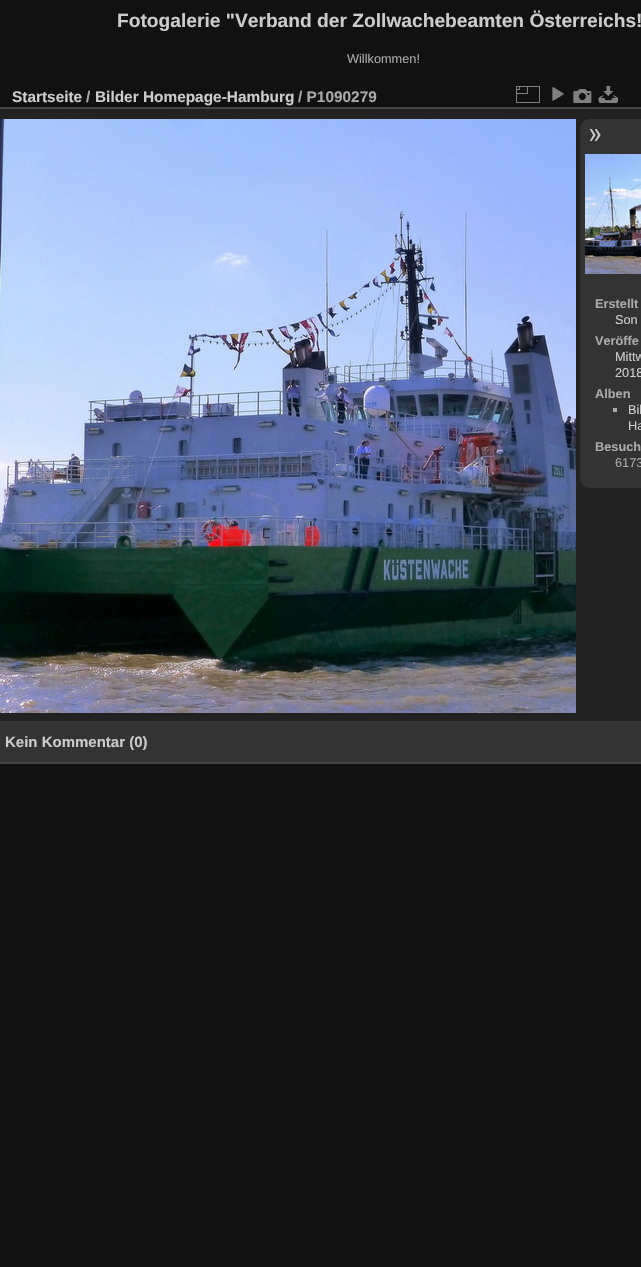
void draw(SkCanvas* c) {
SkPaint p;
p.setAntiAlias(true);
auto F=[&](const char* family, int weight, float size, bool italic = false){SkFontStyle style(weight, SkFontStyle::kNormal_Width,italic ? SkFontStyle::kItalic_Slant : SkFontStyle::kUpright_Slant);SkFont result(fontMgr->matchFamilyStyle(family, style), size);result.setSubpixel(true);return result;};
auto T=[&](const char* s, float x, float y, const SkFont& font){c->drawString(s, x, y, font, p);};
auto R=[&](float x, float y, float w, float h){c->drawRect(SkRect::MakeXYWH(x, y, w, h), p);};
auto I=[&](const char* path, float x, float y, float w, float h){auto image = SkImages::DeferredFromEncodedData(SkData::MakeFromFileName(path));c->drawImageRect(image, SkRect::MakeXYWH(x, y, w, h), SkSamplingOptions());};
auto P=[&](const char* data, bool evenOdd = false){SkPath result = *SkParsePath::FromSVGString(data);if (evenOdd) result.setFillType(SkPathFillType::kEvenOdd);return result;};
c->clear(0xff111111);
auto f1 = F("Liberation Sans",700,19.2);
p.setColor(0xffcccccc);
T("Fotogalerie \"Verband der Zollwachebeamten Österreichs!",117,27,f1);
auto f2 = F("Liberation Sans",400,12.75);
p.setColor(0xffaaaaaa);
T("Willkommen!",347,63,f2);
p.setColor(0xff222222);
R(0,109,641,612);
p.setColor(0xff444444);
R(0,762,641,2);
R(0,107,641,2);
auto f3 = F("Liberation Sans",700,15.4);
p.setColor(0xffcccccc);
T("Startseite",12,102,f3);
p.setColor(0xffaaaaaa);
T("/",86,102,f3);
p.setColor(0xffcccccc);
T("Bilder Homepage-Hamburg",95,102,f3);
p.setColor(0xffaaaaaa);
T("/ P1090279",298,102,f3);
I("1.png",516,86,24,17);
I("2.png",552,87,12,14);
I("3.png",573,89,19,14);
I("4.png",598,86,21,17);
I("5.png",0,119,576,594);
p.setColor(0xff333333);
c->drawPath(P("M590 119h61v369h-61c-5.5 0-10-4.5-10-10v-349c0-5.5 4.5-10 10-10z"),p);
I("6.png",589,129,12,12);
I("7.png",585,154,56,120);
auto f4 = F("Liberation Sans",700,12.75);
p.setColor(0xffaaaaaa);
T("Erstellt",595,308,f4);
p.setColor(0xffcccccc);
T("Son",615,324,f2);
p.setColor(0xffaaaaaa);
T("Veröffe",595,345,f4);
p.setColor(0xffcccccc);
T("Mittw",615,361,f2);
T("2018",615,377,f2);
p.setColor(0xffaaaaaa);
T("Alben",595,398,f4);
R(613,408,4,4);
p.setColor(0xffcccccc);
T("Bil",628,414,f2);
T("Ha",628,430,f2);
p.setColor(0xffaaaaaa);
T("Besuch",595,451,f4);
T("6173",615,467,f2);
p.setColor(0xff333333);
R(0,721,641,41);
auto f5 = F("Liberation Sans",700,15);
p.setColor(0xffcccccc);
T("Kein Kommentar (0)",5,747,f5);
}
